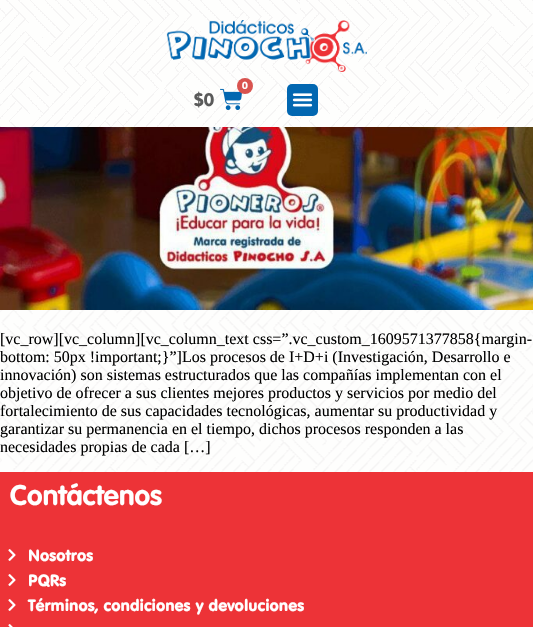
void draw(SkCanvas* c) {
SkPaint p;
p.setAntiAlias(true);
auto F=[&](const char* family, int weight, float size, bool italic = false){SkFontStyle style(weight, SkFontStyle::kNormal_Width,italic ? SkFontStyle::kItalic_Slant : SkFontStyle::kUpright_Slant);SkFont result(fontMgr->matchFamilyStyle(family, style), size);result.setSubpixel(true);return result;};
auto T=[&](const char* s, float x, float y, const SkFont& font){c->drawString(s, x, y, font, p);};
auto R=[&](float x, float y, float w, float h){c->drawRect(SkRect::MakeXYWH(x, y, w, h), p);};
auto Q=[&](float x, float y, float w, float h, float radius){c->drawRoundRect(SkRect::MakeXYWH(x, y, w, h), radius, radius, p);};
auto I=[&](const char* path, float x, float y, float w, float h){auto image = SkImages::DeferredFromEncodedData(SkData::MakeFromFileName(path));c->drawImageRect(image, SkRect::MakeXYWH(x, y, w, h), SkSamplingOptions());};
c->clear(0xffffffff);
I("1.png",0,310,533,162);
I("2.png",0,0,533,127);
I("3.png",166,20,201,52);
I("4.png",220,88,22,22);
p.setColor(0xffd9534f);
c->drawCircle(245,86,8,p);
auto f1 = F("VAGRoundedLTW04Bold",700,10);
p.setColor(0xffffffff);
T("0",242,89,f1);
auto f2 = F("VAGRoundedLTW04Bold",700,18);
p.setColor(0xff5a5a5a);
T("$0",194,106,f2);
p.setColor(0xff0267b1);
Q(287,84,31,32,5);
I("5.png",292,93,21,14);
I("6.png",0,127,533,183);
auto f3 = F("Liberation Serif",400,16);
p.setColor(0xff000000);
T("[vc_row][vc_column][vc_column_text css=”.vc_custom_1609571377858{margin-",0,344,f3);
T("bottom: 50px !important;}”]Los procesos de I+D+i (Investigación, Desarrollo e",0,362,f3);
T("innovación) son sistemas estructurados que las compañías implementan con el",0,380,f3);
T("objetivo de ofrecer a sus clientes mejores productos y servicios por medio del",0,398,f3);
T("fortalecimiento de sus capacidades tecnológicas, aumentar su productividad y",0,416,f3);
T("garantizar su permanencia en el tiempo, dichos procesos responden a las",0,434,f3);
T("necesidades propias de cada […]",0,452,f3);
p.setColor(0xffed3337);
R(0,472,533,155);
auto f4 = F("VAGRoundedLTW04Bold",700,28);
p.setColor(0xffffffff);
T("Contáctenos",10,505,f4);
I("7.png",8,549,8,12);
auto f5 = F("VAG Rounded",400,16);
T("Nosotros",28,561,f5);
I("7.png",8,574,8,12);
T("PQRs",28,586,f5);
I("7.png",8,599,8,12);
T("Términos, condiciones y devoluciones",28,611,f5);
I("8.png",8,624,5,3);
}
